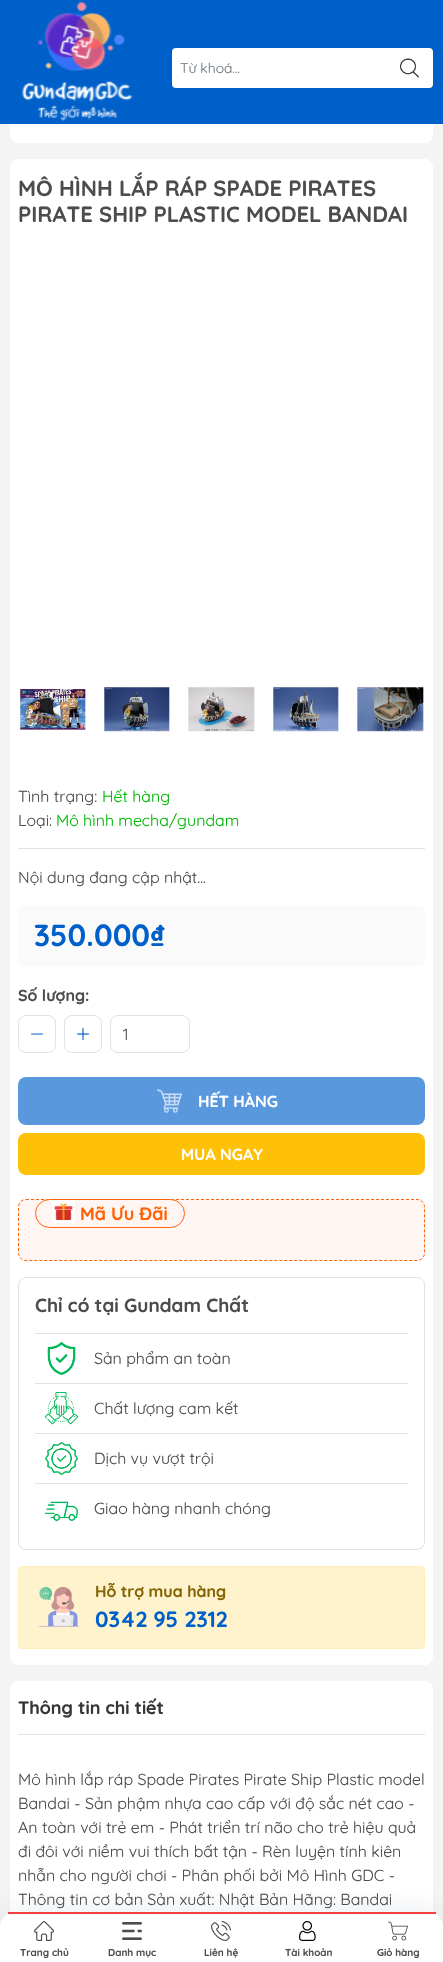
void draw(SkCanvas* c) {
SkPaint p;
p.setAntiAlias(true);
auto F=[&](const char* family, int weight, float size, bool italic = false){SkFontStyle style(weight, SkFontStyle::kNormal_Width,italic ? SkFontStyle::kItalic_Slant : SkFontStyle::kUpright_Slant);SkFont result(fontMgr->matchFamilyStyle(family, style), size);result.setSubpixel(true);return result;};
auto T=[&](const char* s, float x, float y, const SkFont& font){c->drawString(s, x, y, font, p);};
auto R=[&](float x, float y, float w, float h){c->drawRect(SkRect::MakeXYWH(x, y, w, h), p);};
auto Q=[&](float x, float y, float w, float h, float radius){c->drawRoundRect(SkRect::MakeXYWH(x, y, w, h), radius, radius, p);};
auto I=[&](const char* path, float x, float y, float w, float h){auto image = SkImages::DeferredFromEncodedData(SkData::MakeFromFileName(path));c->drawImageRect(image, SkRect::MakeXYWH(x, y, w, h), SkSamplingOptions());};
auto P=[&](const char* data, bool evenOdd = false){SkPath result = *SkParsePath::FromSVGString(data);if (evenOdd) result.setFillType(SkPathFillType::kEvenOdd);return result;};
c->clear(0xfff4f4f4);
p.setColor(0xffffffff);
Q(10,47,423,96,8);
p.setColor(0xff0060c9);
R(0,0,443,124);
I("1.png",22,1,111,120);
p.setColor(0xffffffff);
Q(172,48,261,40,4);
auto f1 = F("Quicksand",400,14);
p.setColor(0xff6c757d);
T("Từ khoá...",180,73,f1);
I("2.png",400,58,19,20);
p.setColor(0xffffffff);
Q(10,159,423,1506,8);
auto f2 = F("Quicksand",700,22);
p.setColor(0xff4c4c4c);
T("MÔ HÌNH LẮP RÁP SPADE PIRATES",18,196,f2);
T("PIRATE SHIP PLASTIC MODEL BANDAI",18,222,f2);
I("3.png",20,689,66,41);
I("4.png",104,687,66,45);
I("5.png",188,687,67,45);
I("6.png",273,687,66,45);
I("7.png",357,687,67,45);
auto f3 = F("Quicksand",400,16);
T("Tình trạng:",18,802,f3);
p.setColor(0xff00b907);
T("Hết hàng",102,802,f3);
p.setColor(0xff4c4c4c);
T("Loại:",18,826,f3);
p.setColor(0xff00b907);
T("Mô hình mecha/gundam",56,826,f3);
p.setColor(0xffdee2e6);
R(18,848,407,1);
p.setColor(0xff4c4c4c);
T("Nội dung đang cập nhật...",18,883,f3);
p.setColor(0xfffafafa);
Q(18,905,407,62,8);
auto f4 = F("Quicksand",700,30.5);
p.setColor(0xff0060c9);
T("350.000₫",34,946,f4);
auto f5 = F("Quicksand",700,16);
p.setColor(0xff4c4c4c);
T("Số lượng:",18,1001,f5);
p.setStroke(true);
p.setStrokeWidth(1);
p.setColor(0xffdee2e6);
c->drawRoundRect(SkRect::MakeXYWH(18.5,1015.5,37,37),7.5,7.5,p);
I("8.png",31,1033,12,2);
c->drawRoundRect(SkRect::MakeXYWH(64.5,1015.5,37,37),7.5,7.5,p);
I("9.png",77,1028,12,12);
c->drawRoundRect(SkRect::MakeXYWH(110.5,1015.5,79,37),7.5,7.5,p);
p.setStroke(false);
p.setColor(0xff495057);
T("1",123,1040,f3);
p.setColor(0xff5998dc);
Q(18,1077,407,48,8);
I("10.png",157,1089,25,24);
p.setColor(0xffffffff);
T("HẾT HÀNG",198,1107,f5);
p.setColor(0xffffc107);
Q(18,1133,407,42,8);
p.setColor(0xffffffff);
T("MUA NGAY",181,1160,f5);
p.setColor(0xfffff6f4);
Q(18,1199,407,62,8);
p.setStroke(true);
p.setColor(0xffff6307);
p.setPathEffect(SkDashPathEffect::Make({{3,2}}, 0));
c->drawPath(P("M26 1199.5h391c4 0 7.5 3.5 7.5 7.5v46c0 4-3.5 7.5-7.5 7.5h-391c-4 0-7.5-3.5-7.5-7.5v-46c0-4 3.5-7.5 7.5-7.5z"),p);
p.setPathEffect(nullptr);
p.setStroke(false);
p.setColor(0xfffff6f3);
c->drawRoundRect(SkRect::MakeXYWH(35.5,1199.5,149,28),14,14,p);
p.setStroke(true);
p.setColor(0xffff6307);
c->drawRoundRect(SkRect::MakeXYWH(35.5,1199.5,149,28),14,14,p);
I("11.png",52,1200,23,23);
auto f6 = F("Quicksand",700,18);
p.setStroke(false);
T("Mã Ưu Đãi",80,1220,f6);
p.setStroke(true);
p.setColor(0xffdee2e6);
c->drawRoundRect(SkRect::MakeXYWH(18.5,1277.5,406,272),7.5,7.5,p);
auto f7 = F("Quicksand",700,19);
p.setStroke(false);
p.setColor(0xff4c4c4c);
T("Chỉ có tại Gundam Chất",35,1312,f7);
p.setColor(0xffdee2e6);
R(35,1333,373,1);
I("12.png",47,1342,29,33);
p.setColor(0xff4c4c4c);
T("Sản phẩm an toàn",94,1364,f3);
p.setColor(0xffdee2e6);
R(35,1383,373,1);
I("13.png",45,1392,33,33);
p.setColor(0xff4c4c4c);
T("Chất lượng cam kết",94,1414,f3);
p.setColor(0xffdee2e6);
R(35,1433,373,1);
I("14.png",45,1442,33,33);
p.setColor(0xff4c4c4c);
T("Dịch vụ vượt trội",94,1464,f3);
p.setColor(0xffdee2e6);
R(35,1483,373,1);
I("15.png",45,1501,33,20);
p.setColor(0xff4c4c4c);
T("Giao hàng nhanh chóng",94,1514,f3);
p.setColor(0xfffff3cd);
c->drawRoundRect(SkRect::MakeXYWH(18.5,1566.5,406,82),3.5,3.5,p);
p.setStroke(true);
p.setColor(0xffffeeba);
c->drawRoundRect(SkRect::MakeXYWH(18.5,1566.5,406,82),3.5,3.5,p);
I("16.png",39,1587,40,40);
p.setStroke(false);
p.setColor(0xff856404);
T("Hỗ trợ mua hàng",95,1597,f5);
p.setColor(0xff0060c9);
T("0342 95 2312",95,1627,f2);
p.setColor(0xffffffff);
Q(10,1681,423,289,8);
p.setColor(0xffdee2e6);
R(18,1734,407,1);
p.setColor(0xff363636);
T("Thông tin chi tiết",18,1714,f6);
p.setColor(0xff4c4c4c);
T("Mô hình lắp ráp Spade Pirates Pirate Ship Plastic model",18,1785,f3);
T("Bandai - Sản phậm nhựa cao cấp với độ sắc nét cao -",18,1809,f3);
T("An toàn với trẻ em - Phát triển trí não cho trẻ hiệu quả",18,1833,f3);
T("đi đôi với niềm vui thích bất tận - Rèn luyện tính kiên",18,1857,f3);
T("nhẫn cho người chơi - Phân phối bởi Mô Hình GDC -",18,1881,f3);
T("Thông tin cơ bản Sản xuất: Nhật Bản Hãng: Bandai",18,1905,f3);
p.setColor(0x26102a43);
p.setMaskFilter(SkMaskFilter::MakeBlur(kNormal_SkBlurStyle, 18));
c->drawRoundRect(SkRect::MakeXYWH(0,1919,443,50),15,15,p);
p.setMaskFilter(nullptr);
p.setColor(0xffffffff);
c->drawPath(P("M15 1912h413c8.5 0 15 6.5 15 15v35h-443v-35c0-8.5 6.5-15 15-15z"),p);
p.setColor(0xfff64140);
R(8,1912,428,2);
I("17.png",34,1921,20,20);
auto f8 = F("Quicksand",700,10);
p.setColor(0xff4c4c4c);
T("Trang chủ",20,1956,f8);
I("18.png",122,1922,20,18);
T("Danh mục",108,1956,f8);
I("19.png",211,1921,20,20);
T("Liên hệ",204,1956,f8);
I("20.png",299,1921,17,20);
T("Tài khoản",285,1956,f8);
I("21.png",388,1921,20,20);
T("Giỏ hàng",377,1956,f8);
}
